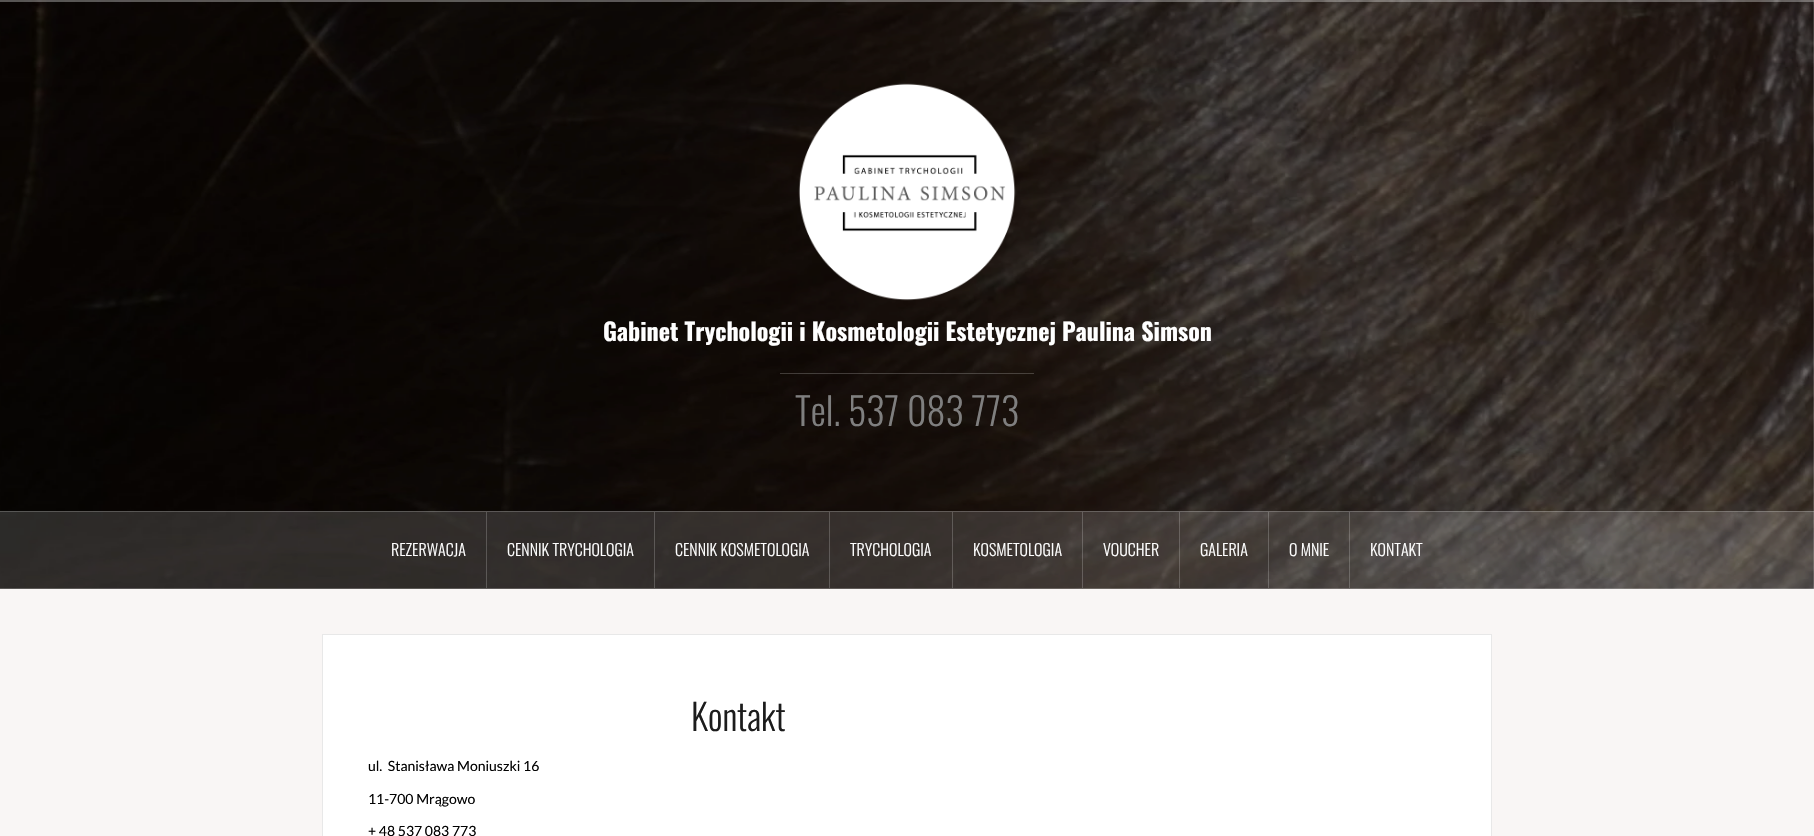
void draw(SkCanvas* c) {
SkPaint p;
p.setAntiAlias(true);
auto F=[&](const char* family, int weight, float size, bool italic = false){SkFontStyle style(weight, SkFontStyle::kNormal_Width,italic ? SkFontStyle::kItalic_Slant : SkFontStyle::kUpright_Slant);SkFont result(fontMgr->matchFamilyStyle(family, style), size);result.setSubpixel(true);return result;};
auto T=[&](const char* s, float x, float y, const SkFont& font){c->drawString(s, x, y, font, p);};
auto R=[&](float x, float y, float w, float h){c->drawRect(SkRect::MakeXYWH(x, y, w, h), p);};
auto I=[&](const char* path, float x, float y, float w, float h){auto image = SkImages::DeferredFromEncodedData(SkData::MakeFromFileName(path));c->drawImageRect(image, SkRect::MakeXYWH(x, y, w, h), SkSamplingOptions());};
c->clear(0xfff9f6f5);
I("1.png",0,0,1814,589);
p.setColor(0x26ffffff);
R(0,0,1814,2);
p.setColor(0x33ffffff);
R(0,0,1814,1);
R(0,1,1814,1);
I("2.png",798,83,218,218);
auto f1 = F("Oswald",700,24);
p.setColor(0xffffffff);
T("Gabinet Trychologii i Kosmetologii Estetycznej Paulina Simson",603,341,f1);
p.setColor(0x33ffffff);
R(780,373,254,1);
auto f2 = F("Oswald",300,38);
p.setColor(0xff7f7f7f);
T("Tel. 537 083 773",795,426,f2);
p.setColor(0x26ffffff);
R(0,511,1814,78);
p.setColor(0x33ffffff);
R(0,511,1814,1);
R(0,588,1814,1);
R(486,512,1,76);
auto f3 = F("Oswald",300,16);
p.setColor(0xffffffff);
T("REZERWACJA",391,556,f3);
p.setColor(0x33ffffff);
R(654,512,1,76);
p.setColor(0xffffffff);
T("CENNIK TRYCHOLOGIA",507,556,f3);
p.setColor(0x33ffffff);
R(829,512,1,76);
p.setColor(0xffffffff);
T("CENNIK KOSMETOLOGIA",675,556,f3);
p.setColor(0x33ffffff);
R(952,512,1,76);
p.setColor(0xffffffff);
T("TRYCHOLOGIA",850,556,f3);
p.setColor(0x33ffffff);
R(1082,512,1,76);
p.setColor(0xffffffff);
T("KOSMETOLOGIA",973,556,f3);
p.setColor(0x33ffffff);
R(1179,512,1,76);
p.setColor(0xffffffff);
T("VOUCHER",1103,556,f3);
p.setColor(0x33ffffff);
R(1268,512,1,76);
p.setColor(0xffffffff);
T("GALERIA",1200,556,f3);
p.setColor(0x33ffffff);
R(1349,512,1,76);
p.setColor(0xffffffff);
T("O MNIE",1289,556,f3);
T("KONTAKT",1370,556,f3);
c->drawRect(SkRect::MakeXYWH(322.5,634.5,1169,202),p);
p.setStroke(true);
p.setStrokeWidth(1);
p.setColor(0xffe8e8e8);
c->drawRect(SkRect::MakeXYWH(322.5,634.5,1169,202),p);
auto f4 = F("Oswald",300,36);
p.setStroke(false);
p.setColor(0xff1c1c1c);
T("Kontakt",691,731,f4);
auto f5 = F("Lato",400,14);
p.setColor(0xff020202);
T("ul.  Stanisława Moniuszki 16",368,771,f5);
T("11-700 Mrągowo",368,804,f5);
T("+ 48 537 083 773",368,836,f5);
}
